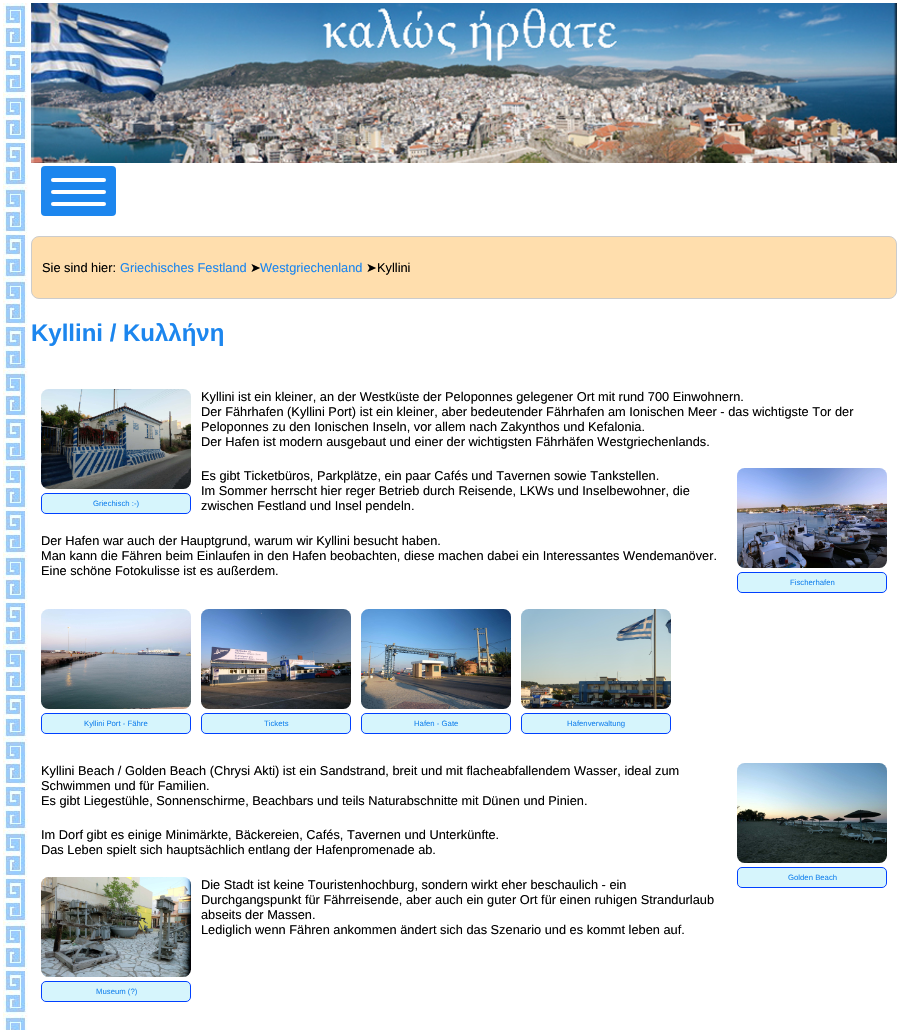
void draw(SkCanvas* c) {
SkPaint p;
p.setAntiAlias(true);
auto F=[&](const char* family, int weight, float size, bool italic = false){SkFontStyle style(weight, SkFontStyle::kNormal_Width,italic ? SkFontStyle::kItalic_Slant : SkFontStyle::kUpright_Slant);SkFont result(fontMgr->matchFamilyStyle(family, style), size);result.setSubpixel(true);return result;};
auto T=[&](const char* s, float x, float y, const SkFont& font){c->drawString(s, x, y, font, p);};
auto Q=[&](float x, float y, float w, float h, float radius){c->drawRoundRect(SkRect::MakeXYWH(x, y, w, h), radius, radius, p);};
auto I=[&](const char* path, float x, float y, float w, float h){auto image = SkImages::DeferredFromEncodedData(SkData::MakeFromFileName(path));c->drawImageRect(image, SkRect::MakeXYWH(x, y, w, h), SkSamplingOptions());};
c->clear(0xffffffff);
I("1.png",3,3,25,1027);
I("2.png",31,3,866,160);
p.setColor(0xff1c86ee);
Q(41,166,75,50,4);
p.setColor(0xffffffff);
Q(51,178,55,4,2);
Q(51,190,55,4,2);
Q(51,202,55,4,2);
p.setColor(0xffffdead);
c->drawRoundRect(SkRect::MakeXYWH(31.5,236.5,865,62),7.5,7.5,p);
p.setStroke(true);
p.setStrokeWidth(1);
p.setColor(0xffcccccc);
c->drawRoundRect(SkRect::MakeXYWH(31.5,236.5,865,62),7.5,7.5,p);
auto f1 = F("Liberation Sans",400,12.8);
p.setStroke(false);
p.setColor(0xff000000);
T("Sie sind hier:",42,272,f1);
p.setColor(0xff1c86ee);
T("Griechisches Festland",120,272,f1);
auto f2 = F("DejaVu Sans",400,12.8);
p.setColor(0xff000000);
T("➤",250,272,f2);
p.setColor(0xff1c86ee);
T("Westgriechenland",260,272,f1);
p.setColor(0xff000000);
T("➤",366,272,f2);
T("Kyllini",377,272,f1);
auto f3 = F("Liberation Sans",700,24);
p.setColor(0xff1c86ee);
T("Kyllini / Κuλλήνη",31,341,f3);
p.setColor(0xff000000);
T("Kyllini ist ein kleiner, an der Westküste der Peloponnes gelegener Ort mit rund 700 Einwohnern.",201,401,f1);
T("Der Fährhafen (Kyllini Port) ist ein kleiner, aber bedeutender Fährhafen am Ionischen Meer - das wichtigste Tor der",201,416,f1);
T("Peloponnes zu den Ionischen Inseln, vor allem nach Zakynthos und Kefalonia.",201,431,f1);
T("Der Hafen ist modern ausgebaut und einer der wichtigsten Fährhäfen Westgriechenlands.",201,446,f1);
I("3.png",41,389,150,100);
p.setColor(0xffd6f5fc);
c->drawRoundRect(SkRect::MakeXYWH(41.5,493.5,149,20),4.5,4.5,p);
p.setStroke(true);
p.setColor(0xff0040ff);
c->drawRoundRect(SkRect::MakeXYWH(41.5,493.5,149,20),4.5,4.5,p);
auto f4 = F("Liberation Sans",400,7.75);
p.setStroke(false);
p.setColor(0xff1c86ee);
T("Griechisch :-)",93,506,f4);
p.setColor(0xff000000);
T("Es gibt Ticketbüros, Parkplätze, ein paar Cafés und Tavernen sowie Tankstellen.",201,480,f1);
T("Im Sommer herrscht hier reger Betrieb durch Reisende, LKWs und Inselbewohner, die",201,495,f1);
T("zwischen Festland und Insel pendeln.",201,510,f1);
T("Der Hafen war auch der Hauptgrund, warum wir Kyllini besucht haben.",41,545,f1);
T("Man kann die Fähren beim Einlaufen in den Hafen beobachten, diese machen dabei ein Interessantes Wendemanöver.",41,560,f1);
T("Eine schöne Fotokulisse ist es außerdem.",41,575,f1);
I("4.png",737,468,150,100);
p.setColor(0xffd6f5fc);
c->drawRoundRect(SkRect::MakeXYWH(737.5,572.5,149,20),4.5,4.5,p);
p.setStroke(true);
p.setColor(0xff0040ff);
c->drawRoundRect(SkRect::MakeXYWH(737.5,572.5,149,20),4.5,4.5,p);
p.setStroke(false);
p.setColor(0xff1c86ee);
T("Fischerhafen",790,585,f4);
I("5.png",41,609,150,100);
p.setColor(0xffd6f5fc);
c->drawRoundRect(SkRect::MakeXYWH(41.5,713.5,149,20),4.5,4.5,p);
p.setStroke(true);
p.setColor(0xff0040ff);
c->drawRoundRect(SkRect::MakeXYWH(41.5,713.5,149,20),4.5,4.5,p);
p.setStroke(false);
p.setColor(0xff1c86ee);
T("Kyllini Port - Fähre",84,726,f4);
I("6.png",201,609,150,100);
p.setColor(0xffd6f5fc);
c->drawRoundRect(SkRect::MakeXYWH(201.5,713.5,149,20),4.5,4.5,p);
p.setStroke(true);
p.setColor(0xff0040ff);
c->drawRoundRect(SkRect::MakeXYWH(201.5,713.5,149,20),4.5,4.5,p);
p.setStroke(false);
p.setColor(0xff1c86ee);
T("Tickets",264,726,f4);
I("7.png",361,609,150,100);
p.setColor(0xffd6f5fc);
c->drawRoundRect(SkRect::MakeXYWH(361.5,713.5,149,20),4.5,4.5,p);
p.setStroke(true);
p.setColor(0xff0040ff);
c->drawRoundRect(SkRect::MakeXYWH(361.5,713.5,149,20),4.5,4.5,p);
p.setStroke(false);
p.setColor(0xff1c86ee);
T("Hafen - Gate",414,726,f4);
I("8.png",521,609,150,100);
p.setColor(0xffd6f5fc);
c->drawRoundRect(SkRect::MakeXYWH(521.5,713.5,149,20),4.5,4.5,p);
p.setStroke(true);
p.setColor(0xff0040ff);
c->drawRoundRect(SkRect::MakeXYWH(521.5,713.5,149,20),4.5,4.5,p);
p.setStroke(false);
p.setColor(0xff1c86ee);
T("Hafenverwaltung",567,726,f4);
p.setColor(0xff000000);
T("Kyllini Beach / Golden Beach (Chrysi Akti) ist ein Sandstrand, breit und mit flacheabfallendem Wasser, ideal zum",41,775,f1);
T("Schwimmen und für Familien.",41,790,f1);
T("Es gibt Liegestühle, Sonnenschirme, Beachbars und teils Naturabschnitte mit Dünen und Pinien.",41,805,f1);
T("Im Dorf gibt es einige Minimärkte, Bäckereien, Cafés, Tavernen und Unterkünfte.",41,839,f1);
T("Das Leben spielt sich hauptsächlich entlang der Hafenpromenade ab.",41,854,f1);
I("9.png",737,763,150,100);
p.setColor(0xffd6f5fc);
c->drawRoundRect(SkRect::MakeXYWH(737.5,867.5,149,20),4.5,4.5,p);
p.setStroke(true);
p.setColor(0xff0040ff);
c->drawRoundRect(SkRect::MakeXYWH(737.5,867.5,149,20),4.5,4.5,p);
p.setStroke(false);
p.setColor(0xff1c86ee);
T("Golden Beach",788,880,f4);
p.setColor(0xff000000);
T("Die Stadt ist keine Touristenhochburg, sondern wirkt eher beschaulich - ein",201,889,f1);
T("Durchgangspunkt für Fährreisende, aber auch ein guter Ort für einen ruhigen Strandurlaub",201,904,f1);
T("abseits der Massen.",201,919,f1);
T("Lediglich wenn Fähren ankommen ändert sich das Szenario und es kommt leben auf.",201,934,f1);
I("10.png",41,877,150,100);
p.setColor(0xffd6f5fc);
c->drawRoundRect(SkRect::MakeXYWH(41.5,981.5,149,20),4.5,4.5,p);
p.setStroke(true);
p.setColor(0xff0040ff);
c->drawRoundRect(SkRect::MakeXYWH(41.5,981.5,149,20),4.5,4.5,p);
p.setStroke(false);
p.setColor(0xff1c86ee);
T("Museum (?)",96,994,f4);
}
